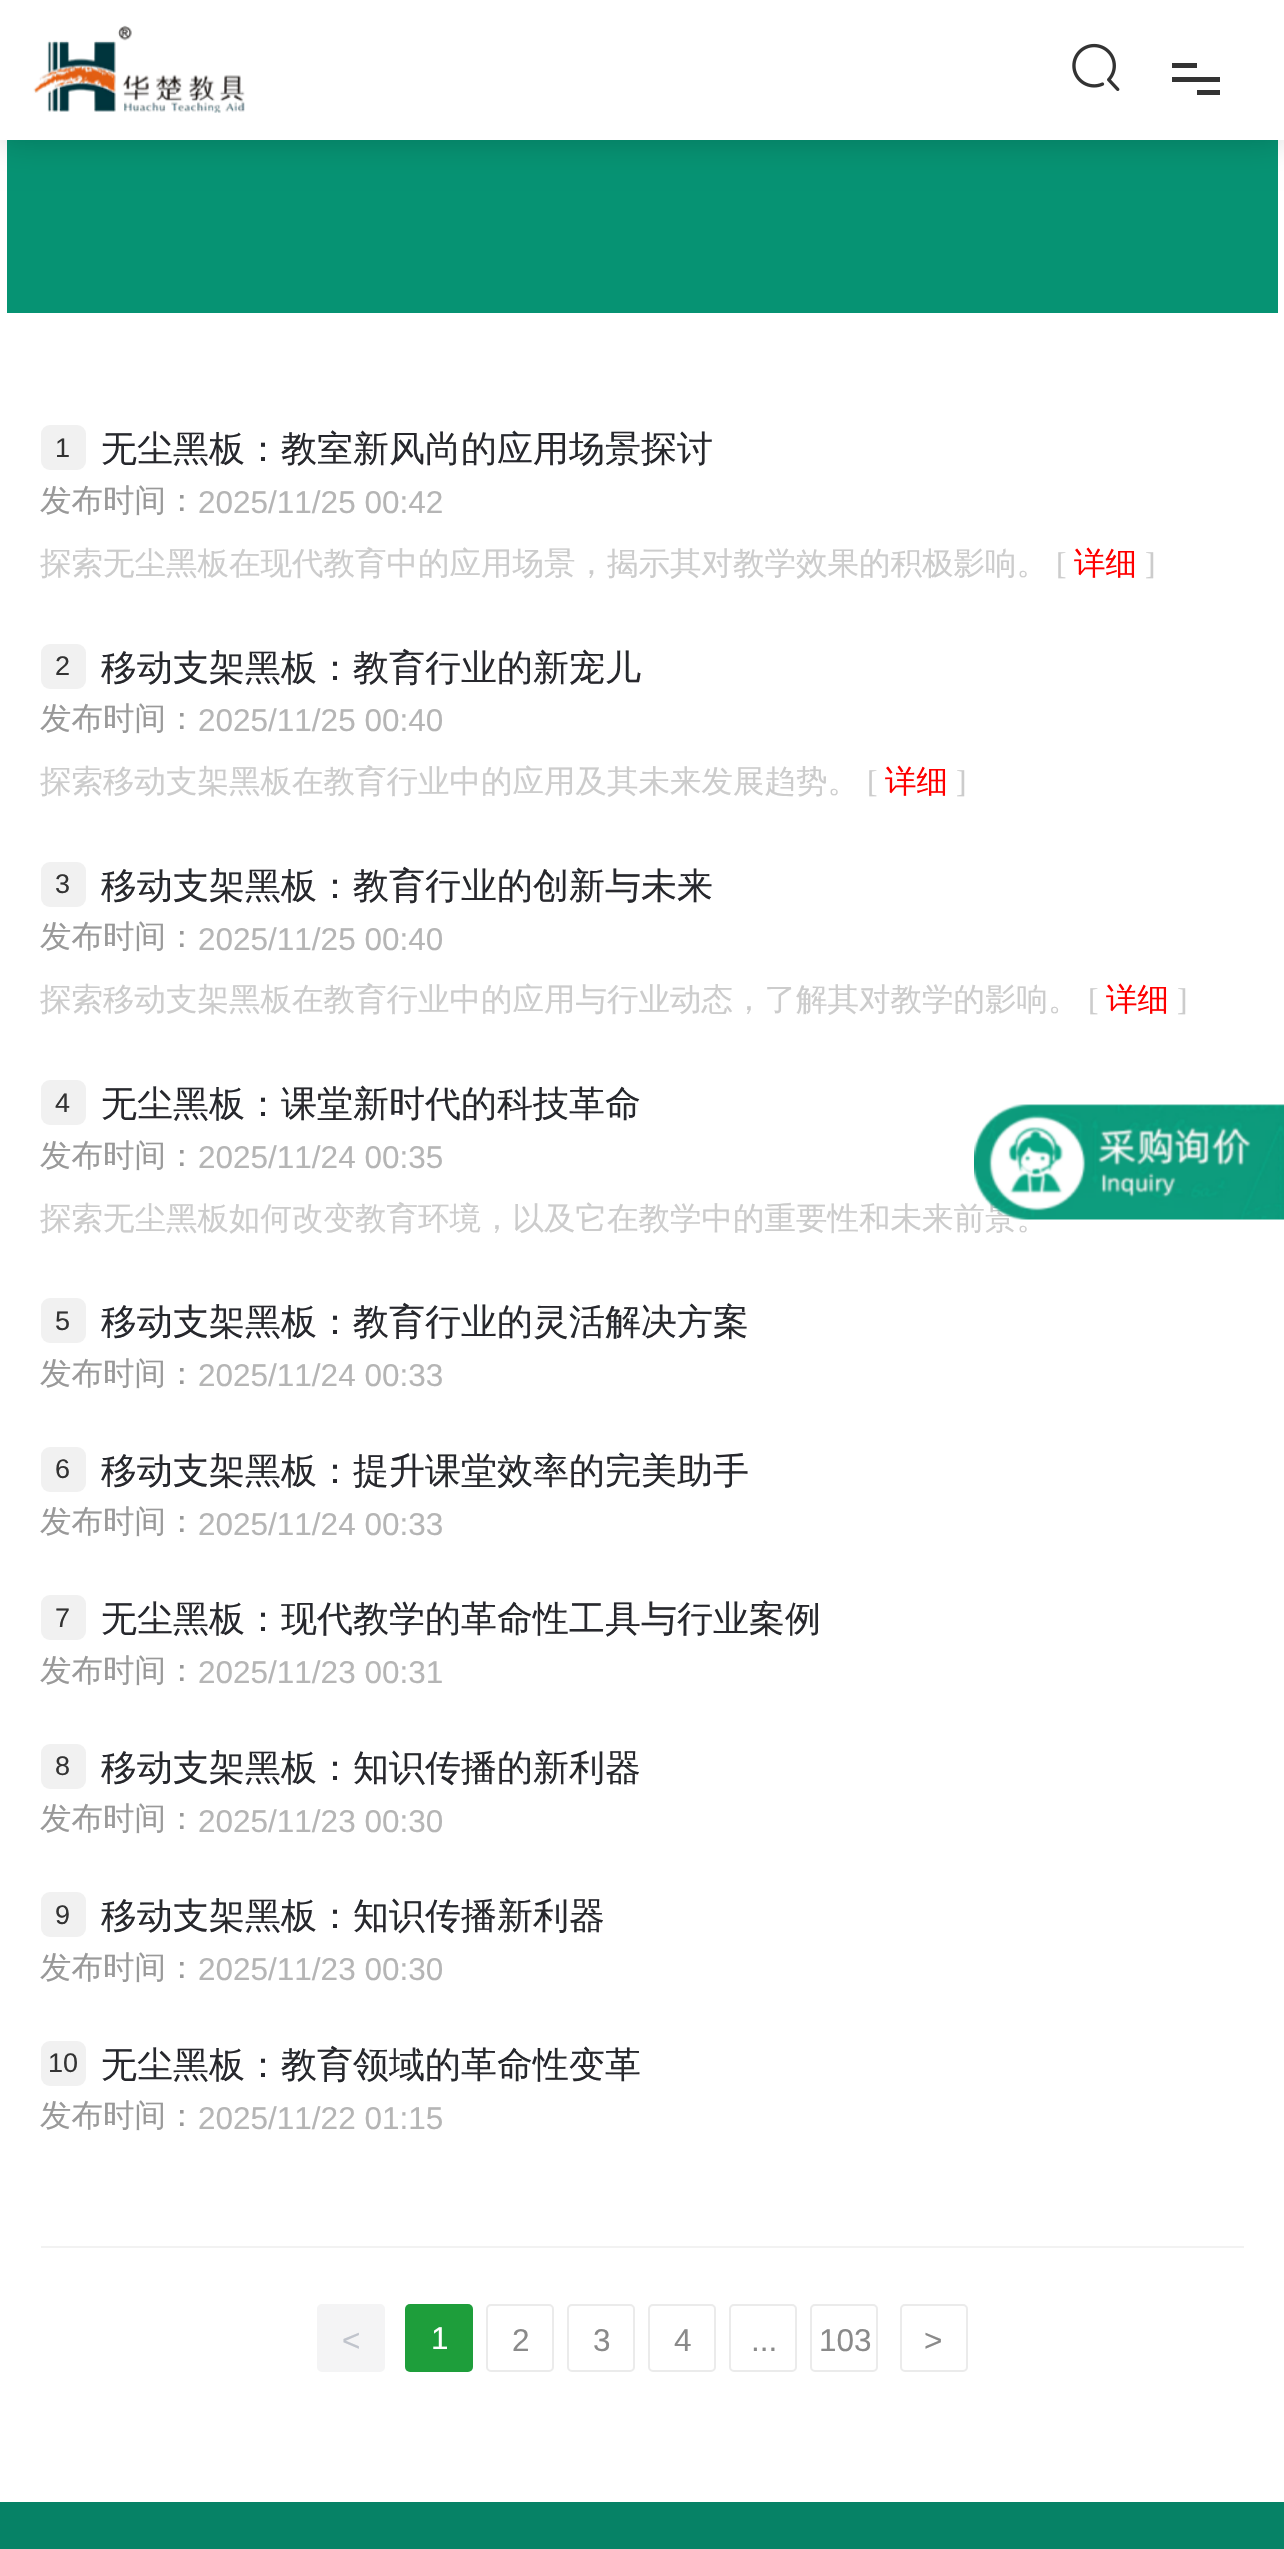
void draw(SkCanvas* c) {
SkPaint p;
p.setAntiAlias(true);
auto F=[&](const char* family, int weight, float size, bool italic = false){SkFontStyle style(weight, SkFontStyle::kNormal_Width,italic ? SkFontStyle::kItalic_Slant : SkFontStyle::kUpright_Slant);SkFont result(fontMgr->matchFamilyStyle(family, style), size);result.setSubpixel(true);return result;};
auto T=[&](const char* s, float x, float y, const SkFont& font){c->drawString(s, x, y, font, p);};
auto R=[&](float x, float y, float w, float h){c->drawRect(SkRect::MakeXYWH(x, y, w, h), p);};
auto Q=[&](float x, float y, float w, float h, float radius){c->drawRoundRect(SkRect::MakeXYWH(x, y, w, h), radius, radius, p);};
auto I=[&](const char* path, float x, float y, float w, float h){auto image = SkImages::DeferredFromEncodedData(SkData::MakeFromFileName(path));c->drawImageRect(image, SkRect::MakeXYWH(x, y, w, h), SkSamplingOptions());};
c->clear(0xffffffff);
p.setColor(0xff069373);
R(7,140,1271,173);
p.setColor(0x33000000);
p.setMaskFilter(SkMaskFilter::MakeBlur(kNormal_SkBlurStyle, 17));
c->drawRect(SkRect::MakeXYWH(0,0,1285,140),p);
p.setMaskFilter(nullptr);
p.setColor(0xffffffff);
R(0,0,1284,140);
I("1.png",33,25,212,88);
I("2.png",1072,43,48,48);
auto f1 = F("WenQuanYi Zen Hei",500,31.5);
p.setColor(0xffcccccc);
T("探索无尘黑板如何改变教育环境，以及它在教学中的重要性和未来前景。",40,1229,f1);
I("3.png",974,1104,310,116);
p.setColor(0xff333333);
R(1172,63,25,5);
R(1172,77,48,5);
R(1197,90,23,5);
p.setColor(0xfff1f1f1);
Q(41,425,45,45,9);
auto f2 = F("Liberation Sans",400,27);
p.setColor(0xff333333);
T("1",55,457,f2);
auto f3 = F("WenQuanYi Zen Hei",500,36);
p.setColor(0xff27282d);
T("无尘黑板：教室新风尚的应用场景探讨",101,461,f3);
p.setColor(0xff999999);
T("发布时间：",40,511,f1);
auto f4 = F("Liberation Sans",400,31.5);
p.setColor(0xffb5b5b5);
T("2025/11/25 00:42",198,513,f4);
p.setColor(0xffcccccc);
T("探索无尘黑板在现代教育中的应用场景，揭示其对教学效果的积极影响。",40,574,f1);
auto f5 = F("Liberation Serif",400,31.5);
T("[",1056,574,f5);
p.setColor(0xffff0000);
T("详细",1074,574,f1);
p.setColor(0xffcccccc);
T("]",1145,574,f5);
p.setColor(0xfff1f1f1);
Q(41,644,45,45,9);
p.setColor(0xff333333);
T("2",55,675,f2);
p.setColor(0xff27282d);
T("移动支架黑板：教育行业的新宠儿",101,680,f3);
p.setColor(0xff999999);
T("发布时间：",40,729,f1);
p.setColor(0xffb5b5b5);
T("2025/11/25 00:40",198,731,f4);
p.setColor(0xffcccccc);
T("探索移动支架黑板在教育行业中的应用及其未来发展趋势。",40,792,f1);
T("[",867,792,f5);
p.setColor(0xffff0000);
T("详细",885,792,f1);
p.setColor(0xffcccccc);
T("]",956,792,f5);
p.setColor(0xfff1f1f1);
Q(41,862,45,45,9);
p.setColor(0xff333333);
T("3",55,893,f2);
p.setColor(0xff27282d);
T("移动支架黑板：教育行业的创新与未来",101,898,f3);
p.setColor(0xff999999);
T("发布时间：",40,947,f1);
p.setColor(0xffb5b5b5);
T("2025/11/25 00:40",198,950,f4);
p.setColor(0xffcccccc);
T("探索移动支架黑板在教育行业中的应用与行业动态，了解其对教学的影响。",40,1010,f1);
T("[",1088,1010,f5);
p.setColor(0xffff0000);
T("详细",1106,1010,f1);
p.setColor(0xffcccccc);
T("]",1177,1010,f5);
p.setColor(0xfff1f1f1);
Q(41,1080,45,45,9);
p.setColor(0xff333333);
T("4",55,1112,f2);
p.setColor(0xff27282d);
T("无尘黑板：课堂新时代的科技革命",101,1116,f3);
p.setColor(0xff999999);
T("发布时间：",40,1166,f1);
p.setColor(0xffb5b5b5);
T("2025/11/24 00:35",198,1168,f4);
p.setColor(0xfff1f1f1);
Q(41,1298,45,45,9);
p.setColor(0xff333333);
T("5",55,1330,f2);
p.setColor(0xff27282d);
T("移动支架黑板：教育行业的灵活解决方案",101,1334,f3);
p.setColor(0xff999999);
T("发布时间：",40,1384,f1);
p.setColor(0xffb5b5b5);
T("2025/11/24 00:33",198,1386,f4);
p.setColor(0xfff1f1f1);
Q(41,1447,45,45,9);
p.setColor(0xff333333);
T("6",55,1478,f2);
p.setColor(0xff27282d);
T("移动支架黑板：提升课堂效率的完美助手",101,1483,f3);
p.setColor(0xff999999);
T("发布时间：",40,1532,f1);
p.setColor(0xffb5b5b5);
T("2025/11/24 00:33",198,1535,f4);
p.setColor(0xfff1f1f1);
Q(41,1595,45,45,9);
p.setColor(0xff333333);
T("7",55,1627,f2);
p.setColor(0xff27282d);
T("无尘黑板：现代教学的革命性工具与行业案例",101,1631,f3);
p.setColor(0xff999999);
T("发布时间：",40,1681,f1);
p.setColor(0xffb5b5b5);
T("2025/11/23 00:31",198,1683,f4);
p.setColor(0xfff1f1f1);
Q(41,1744,45,45,9);
p.setColor(0xff333333);
T("8",55,1775,f2);
p.setColor(0xff27282d);
T("移动支架黑板：知识传播的新利器",101,1780,f3);
p.setColor(0xff999999);
T("发布时间：",40,1829,f1);
p.setColor(0xffb5b5b5);
T("2025/11/23 00:30",198,1832,f4);
p.setColor(0xfff1f1f1);
Q(41,1892,45,45,9);
p.setColor(0xff333333);
T("9",55,1924,f2);
p.setColor(0xff27282d);
T("移动支架黑板：知识传播新利器",101,1928,f3);
p.setColor(0xff999999);
T("发布时间：",40,1978,f1);
p.setColor(0xffb5b5b5);
T("2025/11/23 00:30",198,1980,f4);
p.setColor(0xfff1f1f1);
Q(41,2041,45,45,9);
p.setColor(0xff333333);
T("10",48,2072,f2);
p.setColor(0xff27282d);
T("无尘黑板：教育领域的革命性变革",101,2077,f3);
p.setColor(0xff999999);
T("发布时间：",40,2126,f1);
p.setColor(0xffb5b5b5);
T("2025/11/22 01:15",198,2129,f4);
p.setColor(0xfff2f2f2);
R(41,2246,1203,2);
p.setColor(0xfff4f4f5);
c->drawRoundRect(SkRect::MakeXYWH(318,2305,66,66),4,4,p);
p.setStroke(true);
p.setStrokeWidth(2);
c->drawRoundRect(SkRect::MakeXYWH(318,2305,66,66),4,4,p);
p.setStroke(false);
p.setColor(0xffc0c4cc);
T("<",342,2351,f4);
p.setColor(0xff1e9e3b);
Q(405,2304,68,68,5);
p.setColor(0xffffffff);
T("1",431,2349,f4);
p.setStroke(true);
p.setColor(0xffebebeb);
c->drawRoundRect(SkRect::MakeXYWH(487,2305,66,66),4,4,p);
p.setStroke(false);
p.setColor(0xff8a8a8a);
T("2",512,2351,f4);
p.setStroke(true);
p.setColor(0xffebebeb);
c->drawRoundRect(SkRect::MakeXYWH(568,2305,66,66),4,4,p);
p.setStroke(false);
p.setColor(0xff8a8a8a);
T("3",593,2351,f4);
p.setStroke(true);
p.setColor(0xffebebeb);
c->drawRoundRect(SkRect::MakeXYWH(649,2305,66,66),4,4,p);
p.setStroke(false);
p.setColor(0xff8a8a8a);
T("4",674,2351,f4);
p.setStroke(true);
p.setColor(0xffebebeb);
c->drawRoundRect(SkRect::MakeXYWH(730,2305,66,66),4,4,p);
p.setStroke(false);
p.setColor(0xff8a8a8a);
T("...",751,2351,f4);
p.setStroke(true);
p.setColor(0xffebebeb);
c->drawRoundRect(SkRect::MakeXYWH(811,2305,66,66),4,4,p);
p.setStroke(false);
p.setColor(0xff8a8a8a);
T("103",819,2351,f4);
p.setStroke(true);
p.setColor(0xffebebeb);
c->drawRoundRect(SkRect::MakeXYWH(901,2305,66,66),4,4,p);
p.setStroke(false);
p.setColor(0xff8a8a8a);
T(">",924,2351,f4);
p.setColor(0xff068266);
R(0,2502,1284,47);
}
